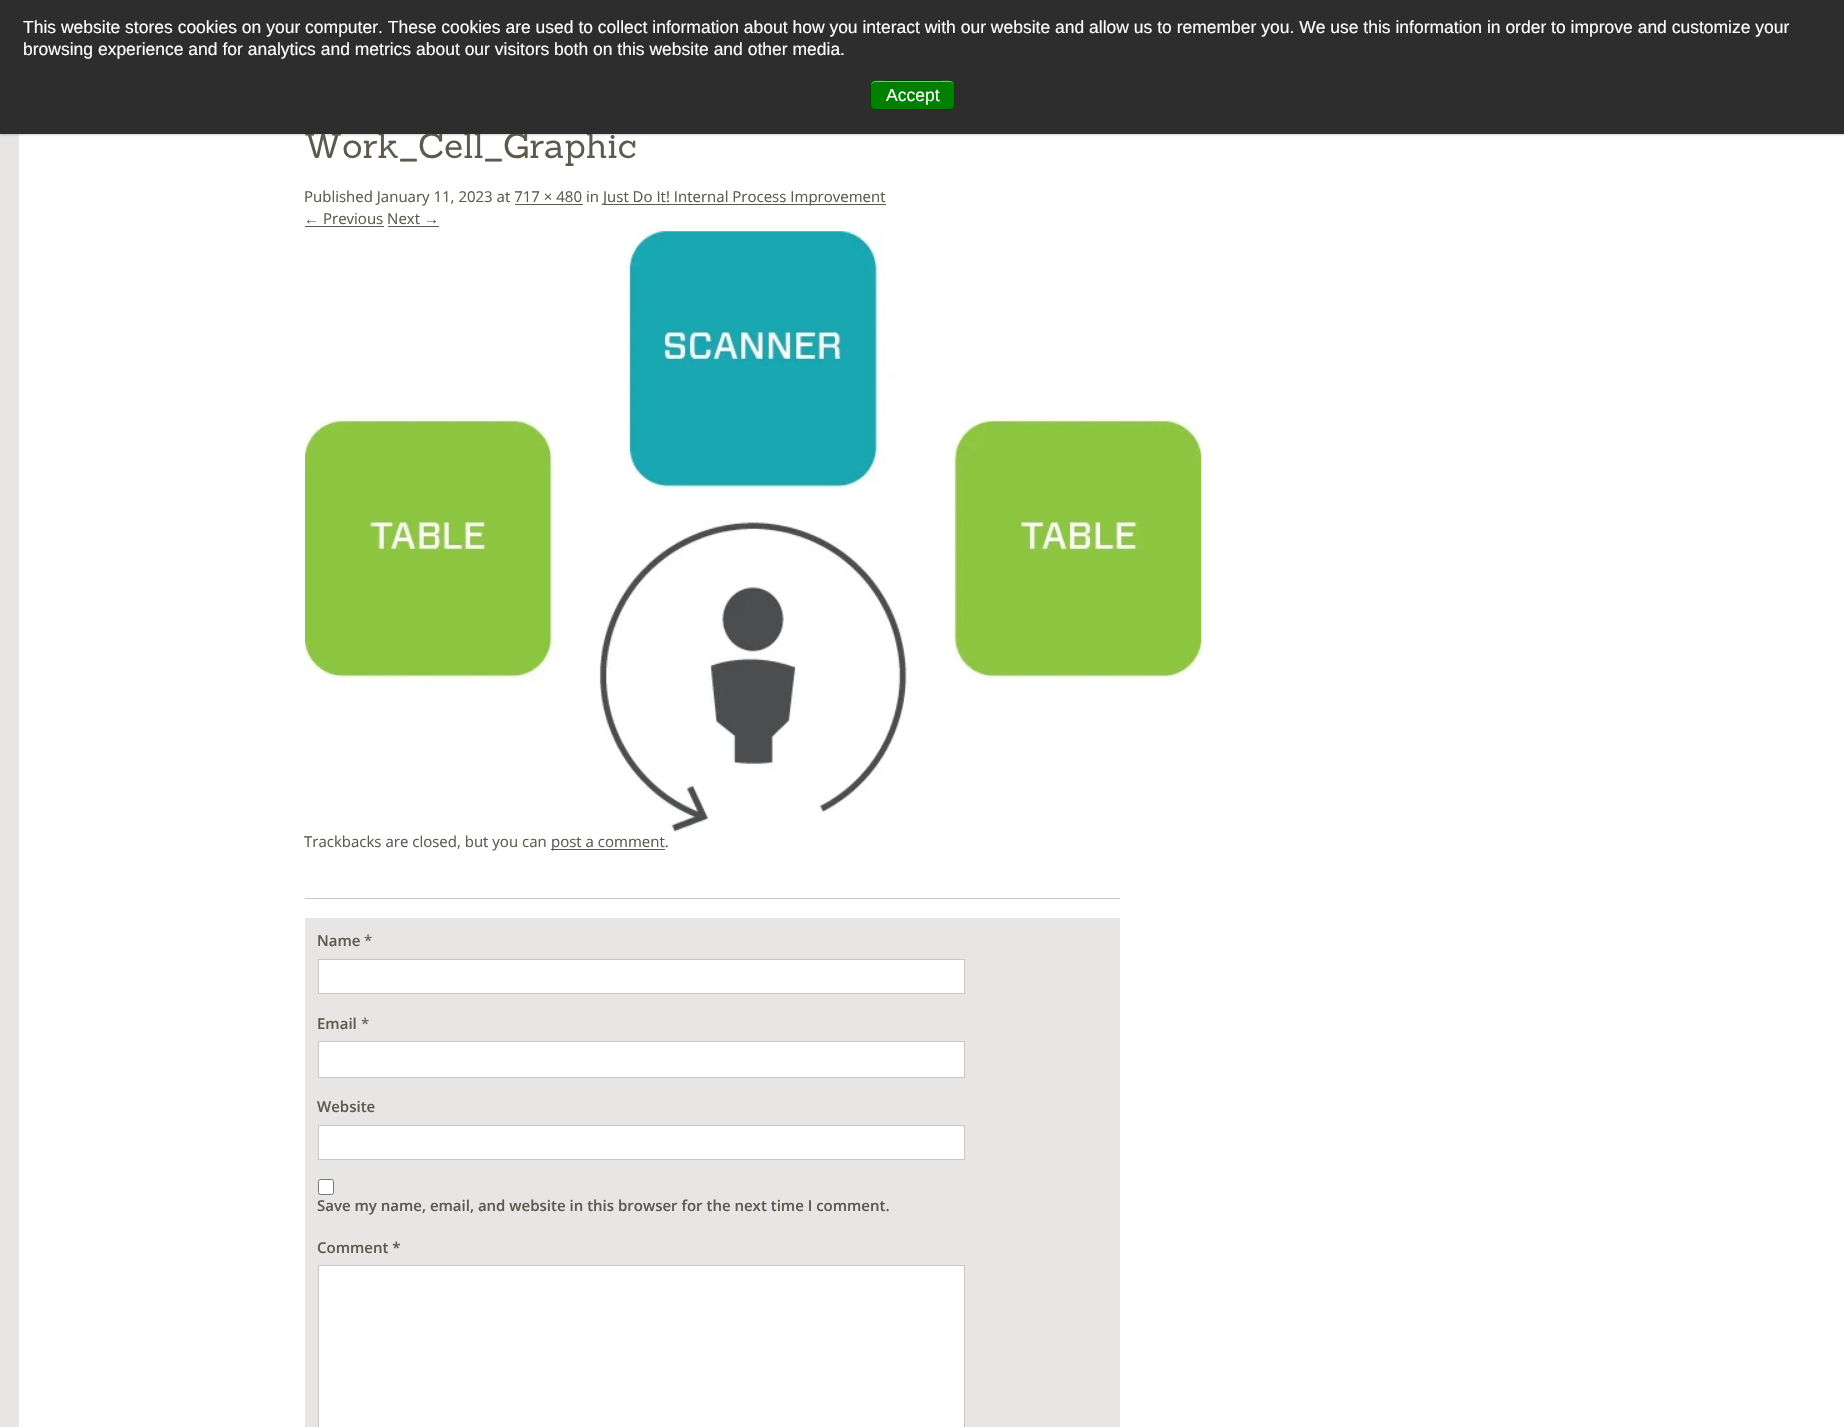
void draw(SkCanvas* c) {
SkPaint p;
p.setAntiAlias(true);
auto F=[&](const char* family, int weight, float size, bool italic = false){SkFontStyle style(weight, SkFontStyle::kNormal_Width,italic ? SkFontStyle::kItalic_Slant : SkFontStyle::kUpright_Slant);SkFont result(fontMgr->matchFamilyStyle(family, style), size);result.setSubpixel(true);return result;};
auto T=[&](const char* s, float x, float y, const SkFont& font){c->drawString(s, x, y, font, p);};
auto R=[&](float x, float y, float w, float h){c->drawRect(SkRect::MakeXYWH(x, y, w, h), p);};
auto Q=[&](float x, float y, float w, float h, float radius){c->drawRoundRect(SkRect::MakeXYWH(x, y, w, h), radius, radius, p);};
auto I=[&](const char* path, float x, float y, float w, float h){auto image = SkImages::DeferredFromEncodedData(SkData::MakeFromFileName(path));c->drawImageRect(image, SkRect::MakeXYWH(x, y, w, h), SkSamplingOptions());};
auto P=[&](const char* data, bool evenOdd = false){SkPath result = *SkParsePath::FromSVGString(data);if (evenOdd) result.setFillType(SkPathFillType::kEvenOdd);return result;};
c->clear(0xffffffff);
p.setColor(0xffe7e6e4);
R(0,134,19,1293);
p.setColor(0x33000000);
p.setMaskFilter(SkMaskFilter::MakeBlur(kNormal_SkBlurStyle, 1));
c->drawRect(SkRect::MakeXYWH(0,1,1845,134),p);
p.setMaskFilter(nullptr);
auto f1 = F("Sanchez",400,35);
p.setColor(0xff5c594d);
T("Work_Cell_Graphic",304,158,f1);
p.setColor(0xff2d2d2d);
R(0,0,1844,134);
auto f2 = F("Liberation Sans",400,17.5);
p.setColor(0xffffffff);
T("This website stores cookies on your computer. These cookies are used to collect information about how you interact with our website and allow us to remember you. We use this information in order to improve and customize your",23,33,f2);
T("browsing experience and for analytics and metrics about our visitors both on this website and other media.",23,55,f2);
p.setColor(0xff008000);
Q(870,80,85,30,5);
p.setColor(0xff80c080);
c->drawPath(P("M875 82h75c2 0 4 2 4 4c0-8-12-5-16-5h-50c-5 0-17-3-17 5c0-2 2-4 4-4z"),p);
p.setStroke(true);
p.setStrokeWidth(1);
p.setColor(0x80000000);
c->drawRoundRect(SkRect::MakeXYWH(870.5,80.5,84,29),4.5,4.5,p);
p.setStroke(false);
p.setColor(0xffffffff);
T("Accept",886,101,f2);
auto f3 = F("Open Sans",400,15);
p.setColor(0xff5c594d);
T("Published January 11, 2023 at 717 × 480 in",304,202,f3);
R(604,204,282,1);
T("Just Do It! Internal Process Improvement",603,202,f3);
R(515,204,68,1);
auto f4 = F("Liberation Sans",400,15);
T("←",304,224,f4);
R(305,226,79,1);
T("Previous Next",323,224,f3);
T("→",424,224,f4);
R(388,226,51,1);
I("1.png",305,231,897,601);
T("Trackbacks are closed, but you can",304,847,f3);
R(551,849,114,1);
T("post a comment.",551,847,f3);
p.setColor(0xffc7c7c6);
R(305,898,815,1);
p.setColor(0xffe7e6e4);
R(305,918,815,509);
auto f5 = F("Open Sans",600,15);
p.setColor(0xff5c594d);
T("Name",317,946,f5);
T("*",364,946,f3);
p.setColor(0xffffffff);
c->drawRect(SkRect::MakeXYWH(318.5,959.5,646,34),p);
p.setStroke(true);
p.setColor(0xffc7c7c6);
c->drawRect(SkRect::MakeXYWH(318.5,959.5,646,34),p);
p.setStroke(false);
p.setColor(0xff5c594d);
T("Email",317,1029,f5);
T("*",361,1029,f3);
p.setColor(0xffffffff);
c->drawRect(SkRect::MakeXYWH(318.5,1041.5,646,36),p);
p.setStroke(true);
p.setColor(0xffc7c7c6);
c->drawRect(SkRect::MakeXYWH(318.5,1041.5,646,36),p);
p.setStroke(false);
p.setColor(0xff5c594d);
T("Website",317,1112,f5);
p.setColor(0xffffffff);
c->drawRect(SkRect::MakeXYWH(318.5,1125.5,646,34),p);
p.setStroke(true);
p.setColor(0xffc7c7c6);
c->drawRect(SkRect::MakeXYWH(318.5,1125.5,646,34),p);
p.setStroke(false);
p.setColor(0xffffffff);
c->drawRoundRect(SkRect::MakeXYWH(318.5,1179.5,15,15),2,2,p);
p.setStroke(true);
p.setColor(0xff767676);
c->drawRoundRect(SkRect::MakeXYWH(318.5,1179.5,15,15),2,2,p);
p.setStroke(false);
p.setColor(0xff5c594d);
T("Save my name, email, and website in this browser for the next time I comment.",317,1211,f5);
T("Comment *",317,1253,f5);
p.setColor(0xffffffff);
c->drawRect(SkRect::MakeXYWH(318.5,1265.5,646,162),p);
p.setStroke(true);
p.setColor(0xffc7c7c6);
c->drawRect(SkRect::MakeXYWH(318.5,1265.5,646,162),p);
}
